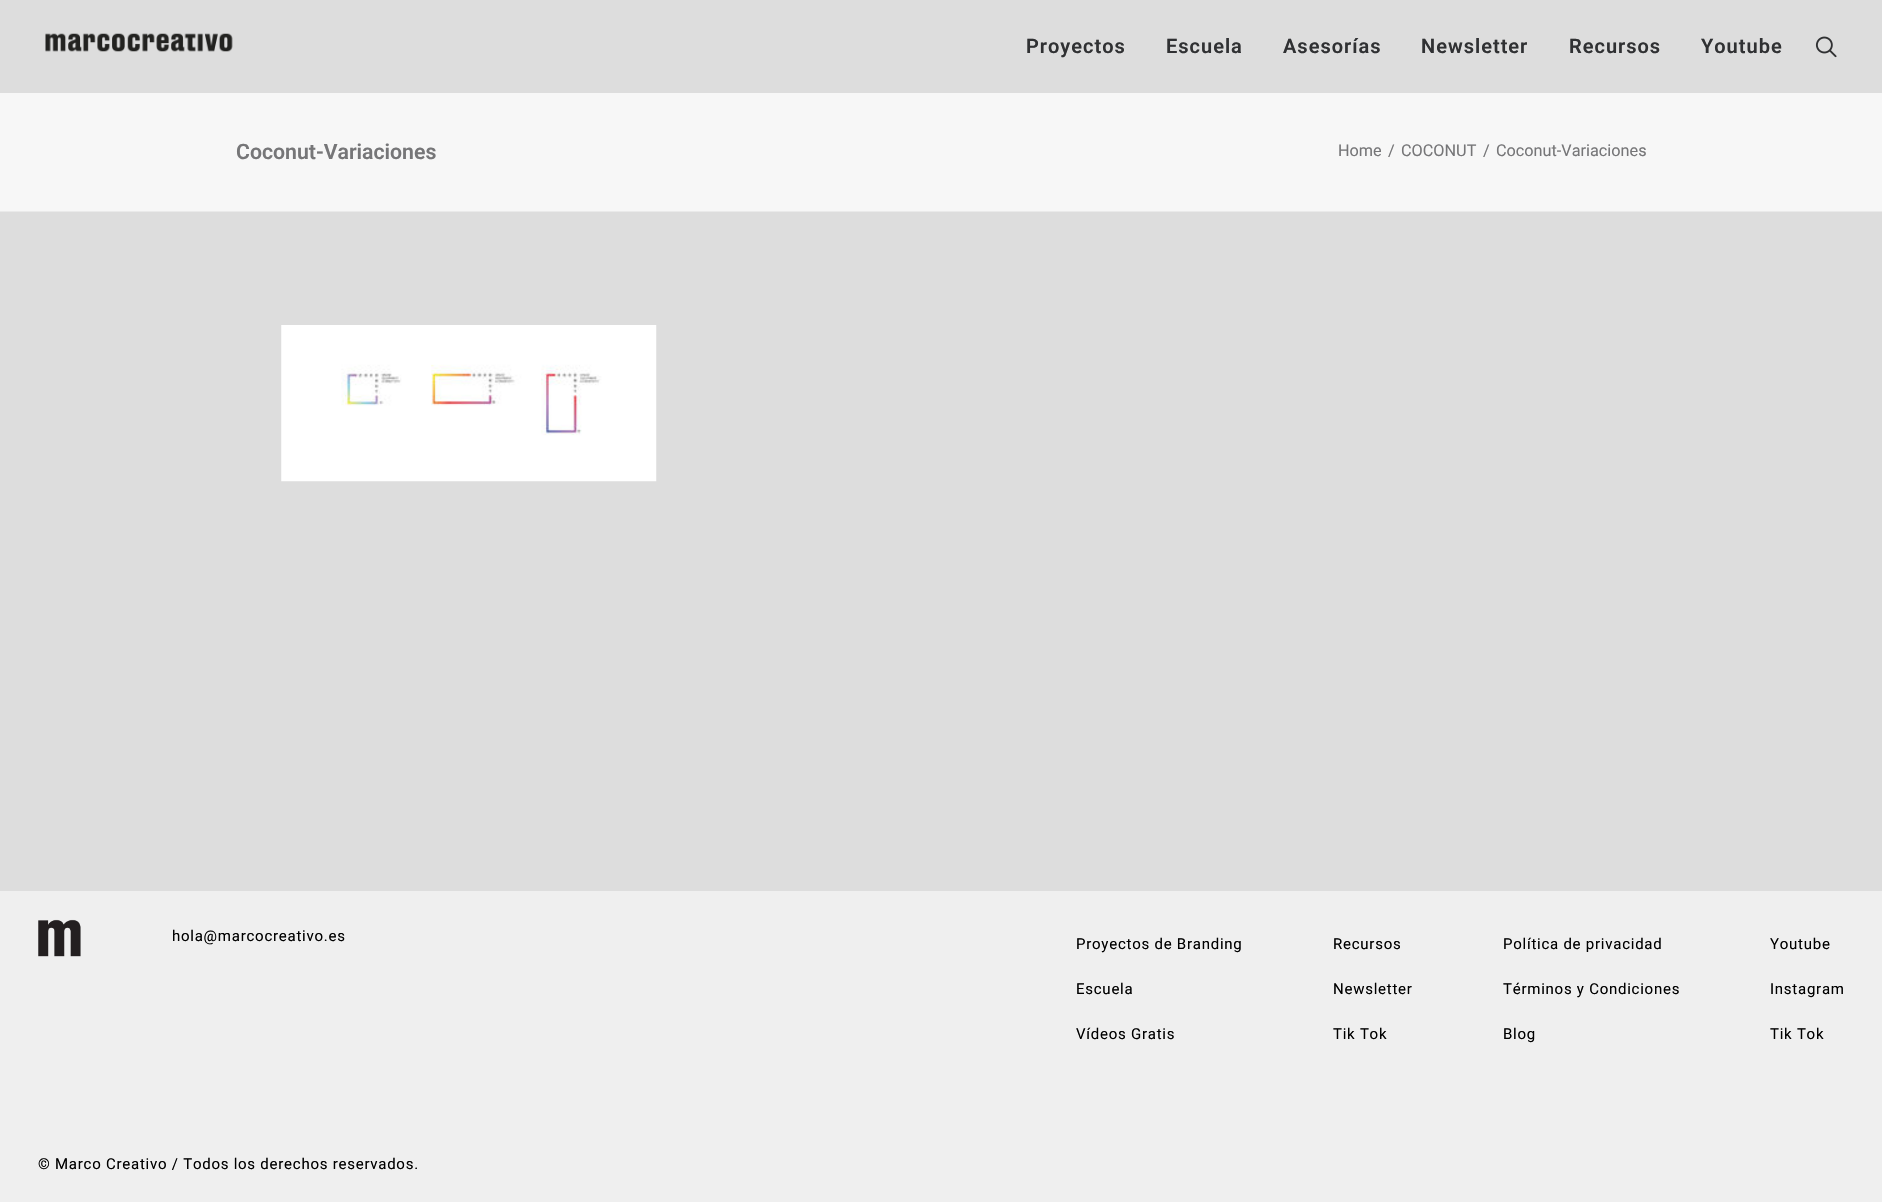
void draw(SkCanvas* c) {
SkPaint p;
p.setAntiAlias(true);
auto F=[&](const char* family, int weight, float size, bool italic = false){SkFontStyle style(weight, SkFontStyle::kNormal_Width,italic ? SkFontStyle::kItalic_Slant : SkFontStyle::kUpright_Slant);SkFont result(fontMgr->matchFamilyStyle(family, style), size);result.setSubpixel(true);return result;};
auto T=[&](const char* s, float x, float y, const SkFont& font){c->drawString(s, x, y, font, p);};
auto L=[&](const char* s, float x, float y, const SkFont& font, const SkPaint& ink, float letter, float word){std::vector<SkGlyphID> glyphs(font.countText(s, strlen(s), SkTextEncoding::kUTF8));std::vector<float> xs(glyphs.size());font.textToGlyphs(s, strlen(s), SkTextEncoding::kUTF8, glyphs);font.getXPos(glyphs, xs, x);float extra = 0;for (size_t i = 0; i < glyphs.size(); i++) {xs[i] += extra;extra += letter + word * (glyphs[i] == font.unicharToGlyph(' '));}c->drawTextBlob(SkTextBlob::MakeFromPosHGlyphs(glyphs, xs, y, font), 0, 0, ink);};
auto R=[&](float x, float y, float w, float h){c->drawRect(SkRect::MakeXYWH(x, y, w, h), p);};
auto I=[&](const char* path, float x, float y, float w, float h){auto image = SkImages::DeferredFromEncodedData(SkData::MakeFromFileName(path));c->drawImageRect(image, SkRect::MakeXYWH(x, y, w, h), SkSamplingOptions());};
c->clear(0xffdddddd);
I("1.png",45,33,188,19);
auto f1 = F("Roboto",600,20);
p.setColor(0xff303133);
L("Proyectos",1026,53,f1,p,1,0);
L("Escuela",1166,53,f1,p,1,0);
L("Asesorías",1283,53,f1,p,1,0);
L("Newsletter",1421,53,f1,p,1,0);
L("Recursos",1569,53,f1,p,1,0);
L("Youtube",1701,53,f1,p,1,0);
I("2.png",1815,36,22,22);
p.setColor(0xfff7f7f7);
R(0,93,1882,118);
p.setColor(0xffeaeaea);
R(0,211,1882,1);
auto f2 = F("Roboto",600,21.25);
p.setColor(0xff767678);
T("Coconut-Variaciones",236,159,f2);
auto f3 = F("Roboto",400,16.25);
T("Home",1338,156,f3);
T("/",1388,156,f3);
T("COCONUT",1401,156,f3);
T("/",1483,156,f3);
T("Coconut-Variaciones",1496,156,f3);
I("3.png",281,325,376,157);
p.setColor(0xffefefef);
R(0,891,1882,311);
I("4.png",38,919,43,38);
auto f4 = F("Roboto",400,15);
p.setColor(0xff000000);
L("hola@marcocreativo.es",172,941,f4,p,.75,0);
L("Proyectos de Branding",1076,949,f4,p,.75,0);
L("Escuela",1076,994,f4,p,.75,0);
L("Vídeos Gratis",1076,1039,f4,p,.75,0);
L("Recursos",1333,949,f4,p,.75,0);
L("Newsletter",1333,994,f4,p,.75,0);
L("Tik Tok",1333,1039,f4,p,.75,0);
L("Política de privacidad",1503,949,f4,p,.75,0);
L("Términos y Condiciones",1503,994,f4,p,.75,0);
L("Blog",1503,1039,f4,p,.75,0);
L("Youtube",1770,949,f4,p,.75,0);
L("Instagram",1770,994,f4,p,.75,0);
L("Tik Tok",1770,1039,f4,p,.75,0);
L("© Marco Creativo / Todos los derechos reservados.",38,1169,f4,p,.75,0);
}
